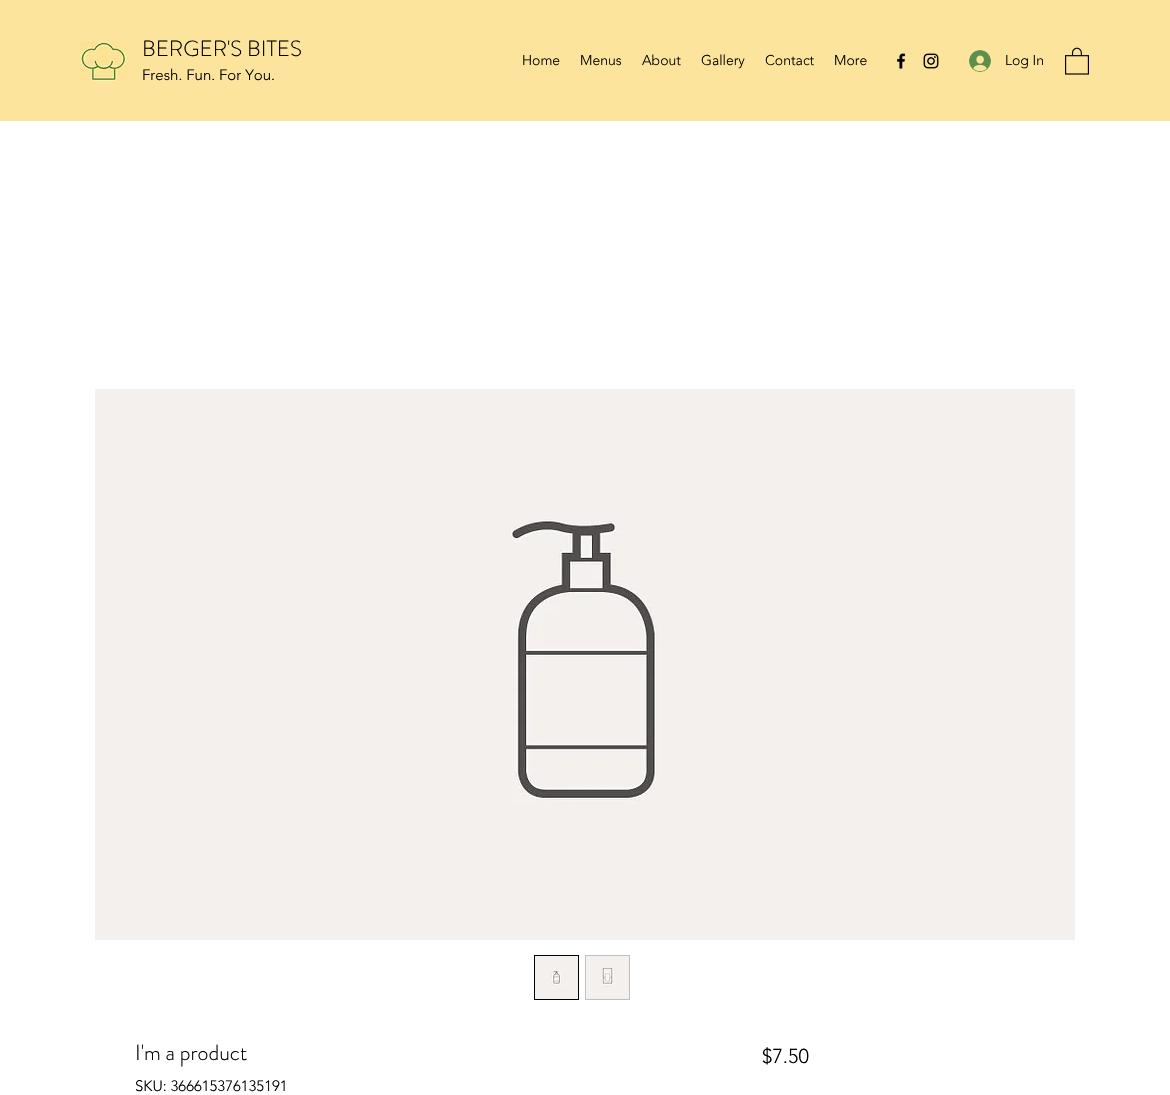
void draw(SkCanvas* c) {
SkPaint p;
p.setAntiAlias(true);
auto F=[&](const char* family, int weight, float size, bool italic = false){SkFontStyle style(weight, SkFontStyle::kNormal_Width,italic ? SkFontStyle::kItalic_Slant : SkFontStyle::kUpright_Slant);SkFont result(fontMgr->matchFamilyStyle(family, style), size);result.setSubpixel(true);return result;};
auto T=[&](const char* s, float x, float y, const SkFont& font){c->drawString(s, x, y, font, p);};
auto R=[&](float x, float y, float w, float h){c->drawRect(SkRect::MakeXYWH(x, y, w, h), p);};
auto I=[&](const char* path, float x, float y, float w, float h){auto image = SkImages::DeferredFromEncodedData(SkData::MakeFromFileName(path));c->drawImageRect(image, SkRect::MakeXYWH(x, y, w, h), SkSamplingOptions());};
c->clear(0xffffffff);
p.setColor(0xfffce49c);
R(0,0,1170,121);
I("1.png",80,42,47,39);
auto f1 = F("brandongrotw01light",300,22);
p.setColor(0xff000000);
T("BERGER'S BITES",142,56,f1);
auto f2 = F("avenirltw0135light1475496",300,15);
T("Fresh. Fun. For You.",142,80,f2);
auto f3 = F("avenirltw0135light1475496",300,14);
T("Home",522,65,f3);
T("Menus",580,65,f3);
T("About",642,65,f3);
T("Gallery",701,65,f3);
T("Contact",765,65,f3);
T("More",834,65,f3);
I("2.png",897,53,9,16);
I("3.png",923,53,16,16);
I("4.png",969,50,22,22);
T("Log In",1005,65,f3);
I("5.png",1065,47,24,28);
I("6.png",95,389,980,551);
p.setStroke(true);
p.setStrokeWidth(1);
c->drawRect(SkRect::MakeXYWH(534.5,955.5,44,44),p);
I("7.png",535,956,43,43);
p.setColor(0xffbfbfbf);
c->drawRect(SkRect::MakeXYWH(585.5,955.5,44,44),p);
I("8.png",586,956,43,43);
p.setStroke(false);
p.setColor(0xff000000);
T("I'm a product",135,1060,f1);
T("SKU: 366615376135191",135,1091,f2);
auto f4 = F("avenirltw0135light1475496",300,20);
T("$7.50",762,1063,f4);
}
